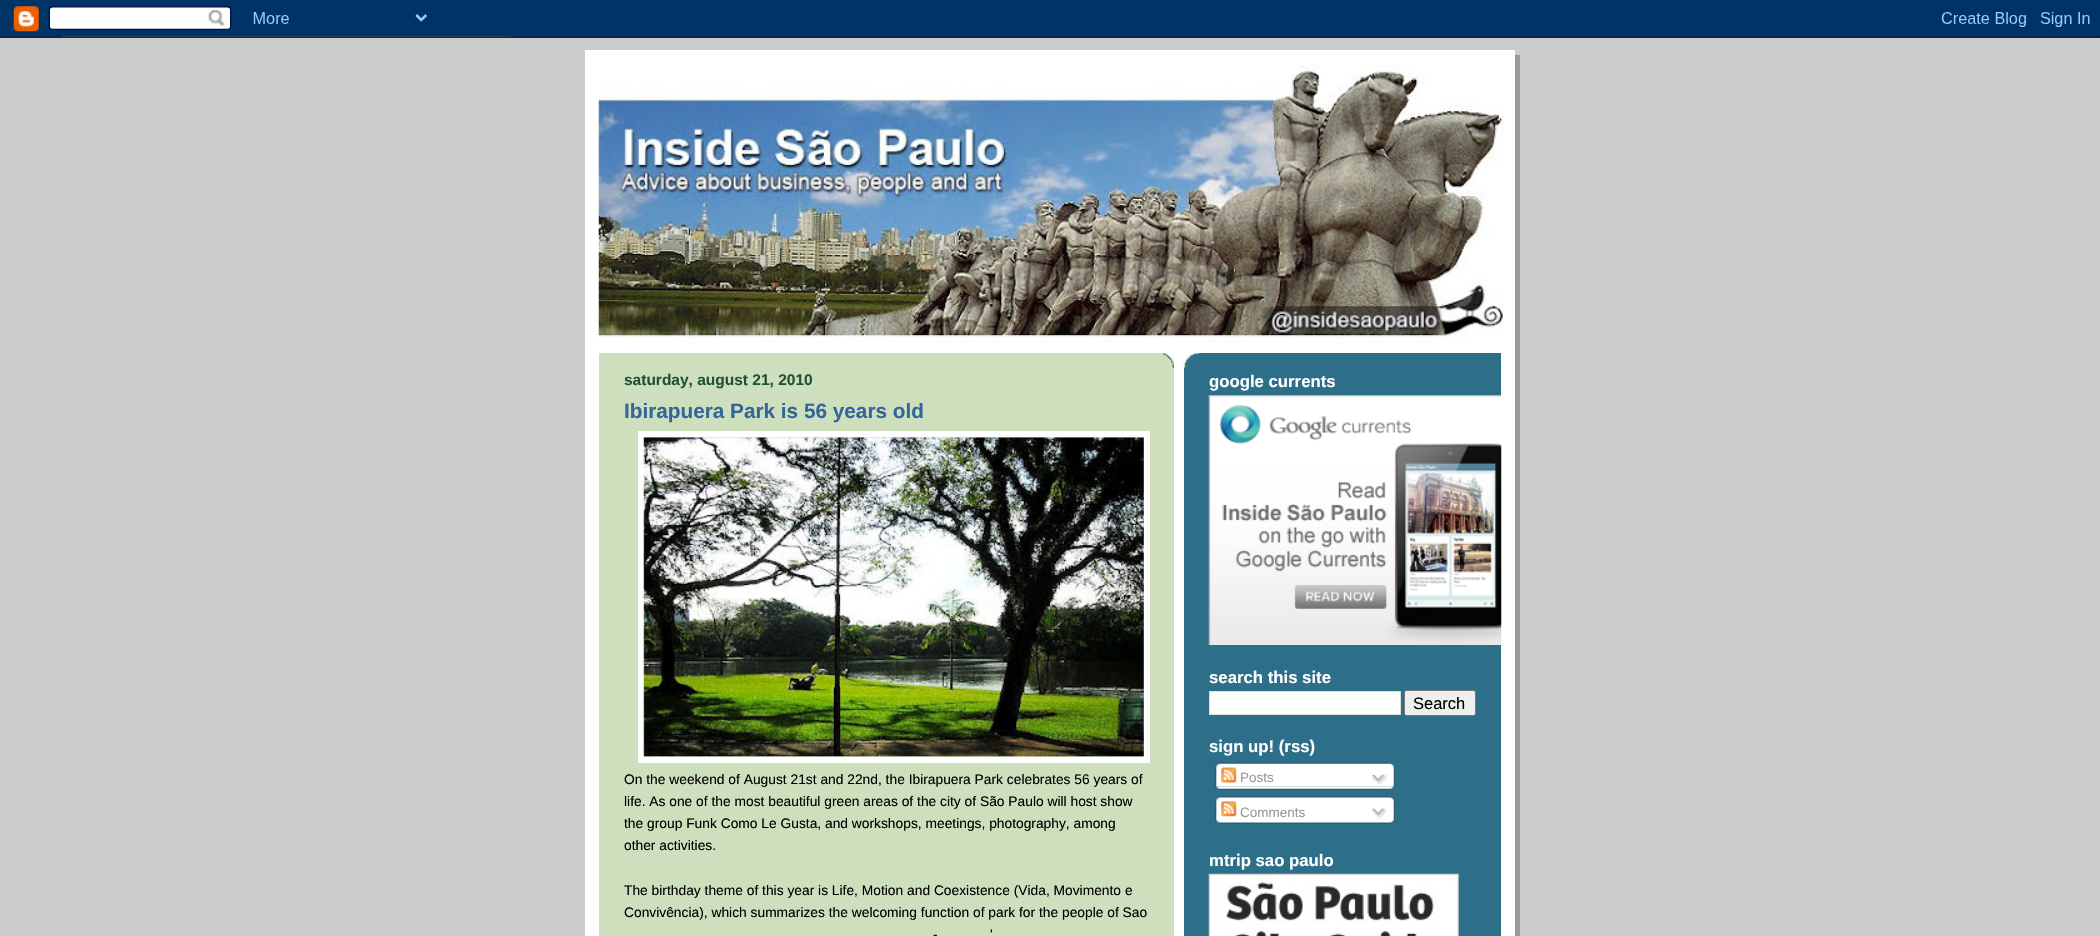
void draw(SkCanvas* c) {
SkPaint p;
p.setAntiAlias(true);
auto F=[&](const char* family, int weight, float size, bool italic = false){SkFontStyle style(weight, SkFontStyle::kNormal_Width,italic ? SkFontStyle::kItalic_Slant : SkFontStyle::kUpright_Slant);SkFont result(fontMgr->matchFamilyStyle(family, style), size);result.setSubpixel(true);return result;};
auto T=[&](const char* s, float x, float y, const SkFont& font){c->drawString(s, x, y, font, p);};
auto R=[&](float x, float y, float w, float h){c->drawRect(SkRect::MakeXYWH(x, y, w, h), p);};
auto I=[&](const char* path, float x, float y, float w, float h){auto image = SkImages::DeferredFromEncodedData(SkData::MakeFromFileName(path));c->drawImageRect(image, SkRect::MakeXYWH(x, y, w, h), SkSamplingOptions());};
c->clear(0xffcccccc);
I("1.png",0,0,2100,38);
p.setColor(0xff999999);
R(1515,55,5,881);
p.setColor(0xffffffff);
R(585,50,930,886);
I("2.png",598,64,906,280);
p.setColor(0xffcedfbd);
R(599,353,575,583);
I("3.png",1162,353,12,15);
auto f1 = F("Liberation Sans",700,15.5);
p.setColor(0xff215235);
T("saturday, august 21, 2010",624,385,f1);
auto f2 = F("Liberation Sans",700,20.75);
p.setColor(0xff336699);
T("Ibirapuera Park is 56 years old",624,418,f2);
p.setStroke(true);
p.setStrokeWidth(6);
p.setColor(0xffffffff);
c->drawRect(SkRect::MakeXYWH(641,434,506,326),p);
I("4.png",643,437,501,320);
auto f3 = F("Liberation Sans",400,13.8);
p.setStroke(false);
p.setColor(0xff000000);
T("On the weekend of August 21st and 22nd, the Ibirapuera Park celebrates 56 years of",624,784,f3);
T("life. As one of the most beautiful green areas of the city of São Paulo will host show",624,806,f3);
T("the group Funk Como Le Gusta, and workshops, meetings, photography, among",624,828,f3);
T("other activities.",624,850,f3);
T("The birthday theme of this year is Life, Motion and Coexistence (Vida, Movimento e",624,895,f3);
T("Convivência), which summarizes the welcoming function of park for the people of Sao",624,917,f3);
T("'",990,939,f3);
T("-",933,939,f3);
p.setColor(0xff2d6e89);
R(1184,353,317,583);
I("5.png",1183,353,16,15);
auto f4 = F("Liberation Sans",700,16.75);
p.setColor(0xffffffff);
T("google currents",1209,387,f4);
I("6.png",1208,395,294,250);
T("search this site",1209,683,f4);
c->drawRect(SkRect::MakeXYWH(1209.5,691.5,191,23),p);
p.setStroke(true);
p.setStrokeWidth(1);
p.setColor(0xffdddddd);
c->drawRect(SkRect::MakeXYWH(1209.5,691.5,191,23),p);
p.setStroke(false);
p.setColor(0xffefefef);
c->drawRoundRect(SkRect::MakeXYWH(1404.5,690.5,71,25),2,2,p);
p.setStroke(true);
p.setColor(0xff767676);
c->drawRoundRect(SkRect::MakeXYWH(1404.5,690.5,71,25),2,2,p);
auto f5 = F("Liberation Sans",400,16.5);
p.setStroke(false);
p.setColor(0xff000000);
T("Search",1413,709,f5);
p.setColor(0xffffffff);
T("sign up! (rss)",1209,752,f4);
I("7.png",1215,762,180,25);
I("8.png",1221,767,16,16);
auto f6 = F("Liberation Sans",400,13.5);
p.setColor(0xff999999);
T("Posts",1240,782,f6);
I("9.png",1371,774,17,11);
I("10.png",1215,786,180,4);
I("11.png",1215,796,180,24);
I("12.png",1221,801,16,16);
T("Comments",1240,817,f6);
I("13.png",1371,808,17,11);
I("14.png",1215,820,180,4);
p.setColor(0xffffffff);
T("mtrip sao paulo",1209,866,f4);
I("15.png",1208,873,251,63);
}
